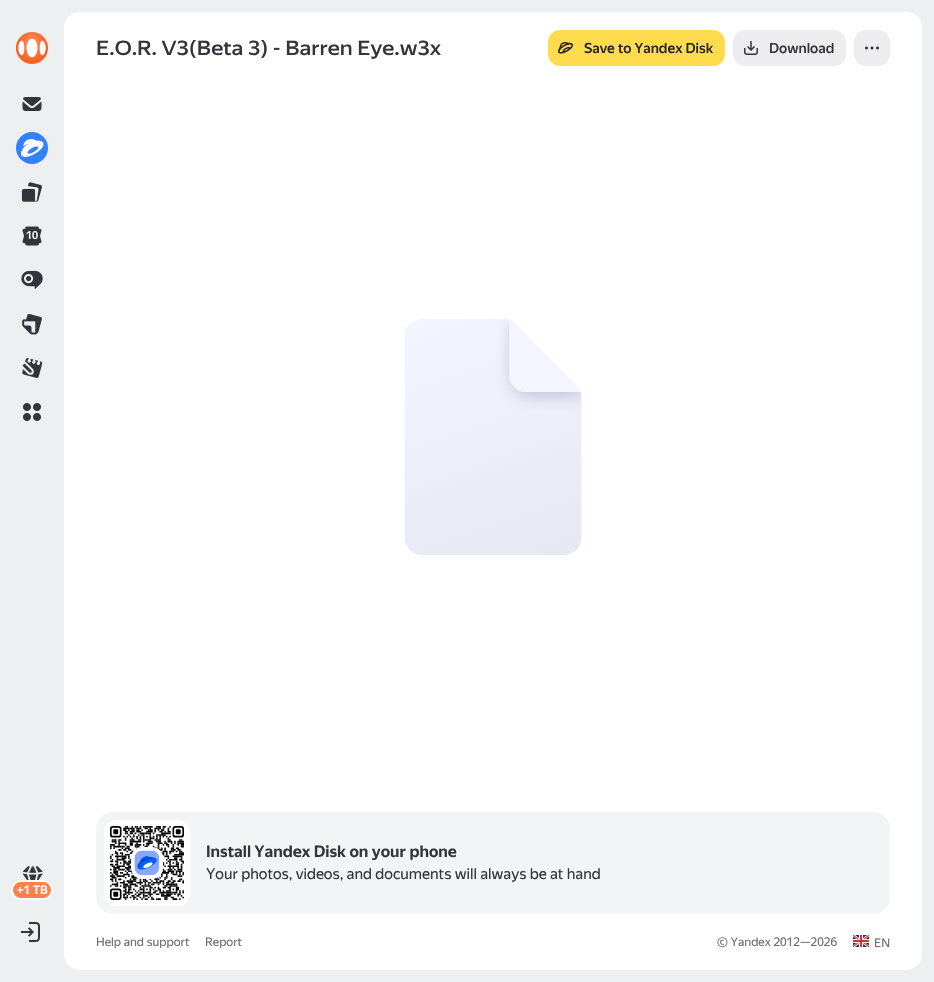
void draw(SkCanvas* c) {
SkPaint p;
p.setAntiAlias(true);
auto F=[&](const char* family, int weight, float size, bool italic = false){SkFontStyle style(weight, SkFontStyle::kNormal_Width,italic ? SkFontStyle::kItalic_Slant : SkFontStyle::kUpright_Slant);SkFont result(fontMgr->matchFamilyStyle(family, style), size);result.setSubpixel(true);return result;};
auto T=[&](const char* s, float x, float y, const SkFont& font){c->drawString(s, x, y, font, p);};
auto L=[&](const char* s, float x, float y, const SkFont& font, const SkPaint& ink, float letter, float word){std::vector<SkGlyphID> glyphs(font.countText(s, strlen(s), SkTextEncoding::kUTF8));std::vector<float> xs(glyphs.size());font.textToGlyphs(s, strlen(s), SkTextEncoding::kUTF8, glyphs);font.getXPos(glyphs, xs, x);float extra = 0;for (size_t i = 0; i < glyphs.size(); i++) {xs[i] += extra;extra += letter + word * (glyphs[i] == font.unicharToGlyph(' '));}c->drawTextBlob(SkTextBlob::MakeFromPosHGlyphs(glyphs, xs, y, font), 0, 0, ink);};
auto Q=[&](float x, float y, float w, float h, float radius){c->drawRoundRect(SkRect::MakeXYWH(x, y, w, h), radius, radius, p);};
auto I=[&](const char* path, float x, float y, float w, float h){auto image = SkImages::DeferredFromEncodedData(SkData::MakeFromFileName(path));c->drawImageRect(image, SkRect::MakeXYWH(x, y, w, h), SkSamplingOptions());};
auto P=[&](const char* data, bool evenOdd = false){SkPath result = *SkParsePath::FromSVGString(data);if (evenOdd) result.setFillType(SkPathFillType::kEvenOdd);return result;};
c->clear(0xffedeff0);
I("1.png",16,32,32,32);
I("2.png",22,97,20,14);
p.setColor(0xff3380ff);
c->drawCircle(32,148,16,p);
I("3.png",21,139,23,18);
I("4.png",21,182,21,20);
I("5.png",22,226,20,20);
auto f1 = F("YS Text",500,11);
p.setColor(0xfff3f4f5);
T("10",26,239,f1);
I("6.png",21,270,22,19);
I("7.png",22,314,20,21);
I("8.png",22,358,21,20);
I("9.png",23,403,18,18);
I("10.png",22,866,21,14);
p.setColor(0xffff7f4d);
c->drawRoundRect(SkRect::MakeXYWH(12,881,40,18),9,9,p);
p.setStroke(true);
p.setStrokeWidth(2);
p.setColor(0xffffffff);
c->drawRoundRect(SkRect::MakeXYWH(12,881,40,18),9,9,p);
auto f2 = F("YS Text",500,12);
p.setStroke(false);
T("+1 TB",17,894,f2);
I("11.png",21,922,19,20);
Q(64,12,858,958,16);
c->drawPath(P("M80 12h826c9 0 16 7 16 16v57h-858v-57c0-9 7-16 16-16z"),p);
auto f3 = F("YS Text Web",400,20);
p.setColor(0xff34343c);
L("E.O.R. V3(Beta 3) - Barren Eye.w3x",96,55,f3,p,0,.25);
p.setColor(0xffffdb4d);
Q(548,30,177,36,12);
I("12.png",558,42,16,12);
auto f4 = F("YS Text",500,14);
p.setColor(0xff242429);
T("Save to Yandex Disk",584,53,f4);
p.setColor(0xffededef);
Q(733,30,113,36,12);
I("13.png",744,41,14,14);
p.setColor(0xff34343c);
T("Download",769,53,f4);
p.setColor(0xffededef);
Q(854,30,36,36,12);
I("14.png",865,46,14,4);
I("15.png",404,319,178,236);
p.setColor(0xfff3f4f5);
Q(96,812,794,102,17);
I("16.png",104,820,86,86);
auto f5 = F("YS Text",700,16);
p.setColor(0xff34343c);
T("Install Yandex Disk on your phone",206,857,f5);
auto f6 = F("YS Text",400,15);
T("Your photos, videos, and documents will always be at hand",206,879,f6);
auto f7 = F("YS Text",400,12);
p.setColor(0xff6b6c77);
T("Help and support",96,946,f7);
T("Report",205,946,f7);
T("© Yandex 2012—2026",717,946,f7);
I("17.png",853,935,16,12);
T("EN",874,947,f7);
}
